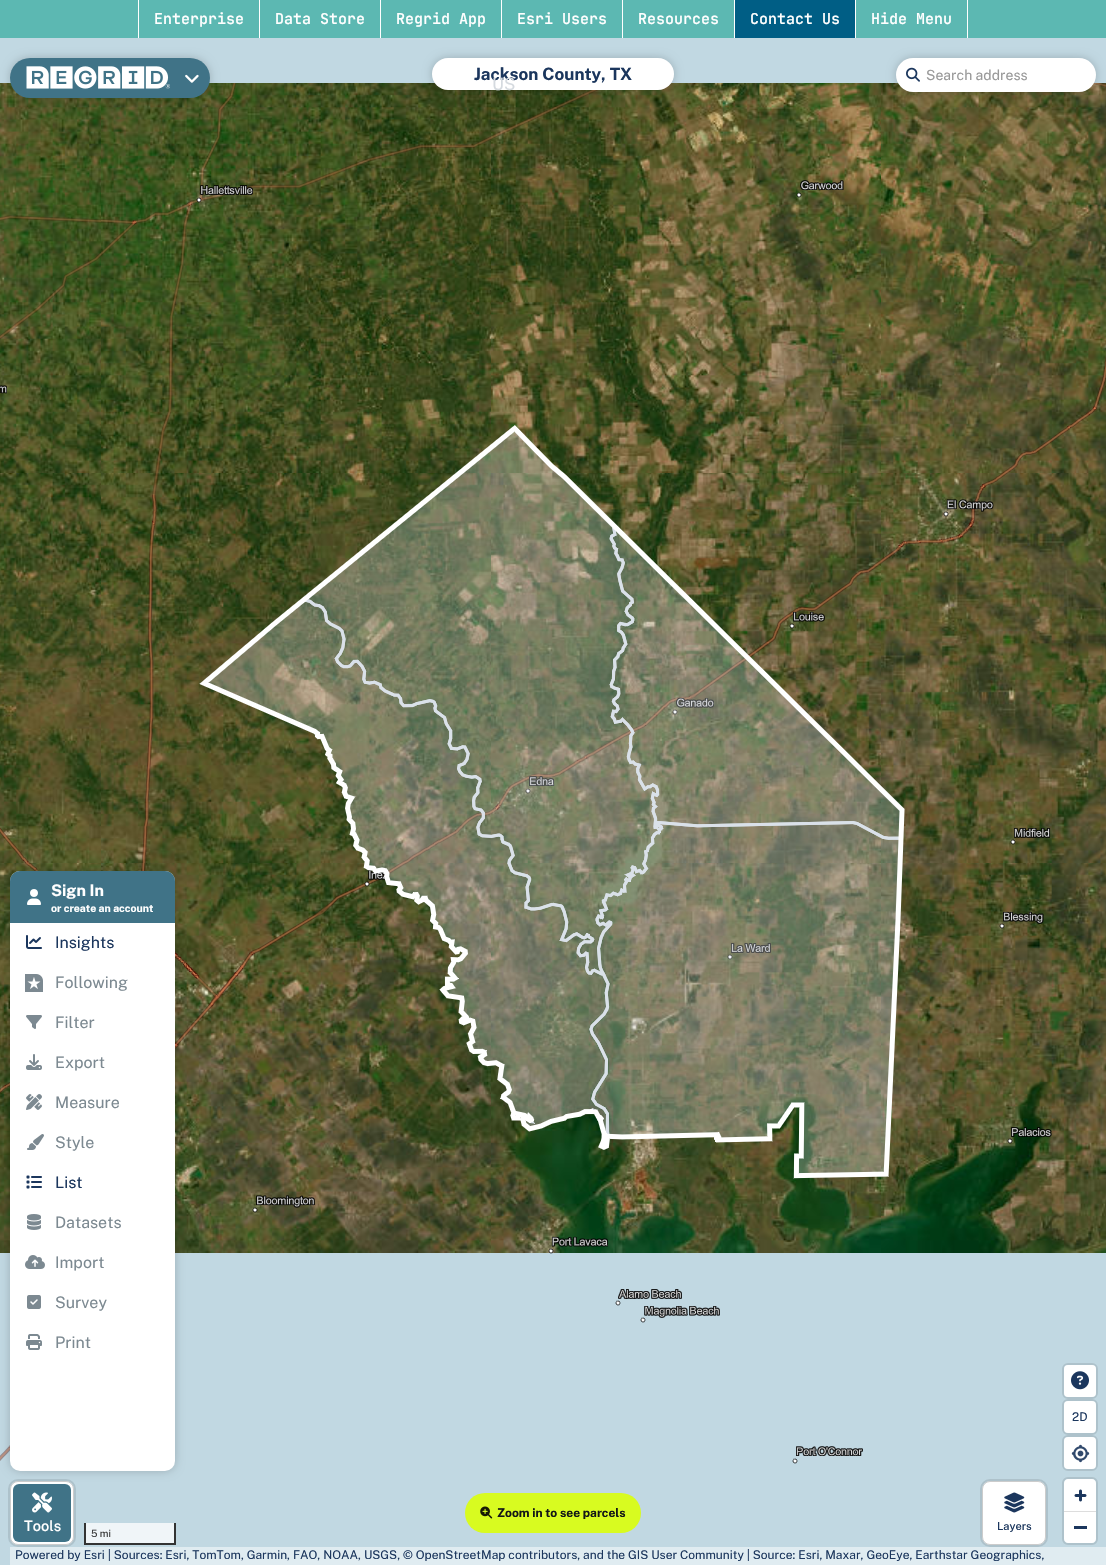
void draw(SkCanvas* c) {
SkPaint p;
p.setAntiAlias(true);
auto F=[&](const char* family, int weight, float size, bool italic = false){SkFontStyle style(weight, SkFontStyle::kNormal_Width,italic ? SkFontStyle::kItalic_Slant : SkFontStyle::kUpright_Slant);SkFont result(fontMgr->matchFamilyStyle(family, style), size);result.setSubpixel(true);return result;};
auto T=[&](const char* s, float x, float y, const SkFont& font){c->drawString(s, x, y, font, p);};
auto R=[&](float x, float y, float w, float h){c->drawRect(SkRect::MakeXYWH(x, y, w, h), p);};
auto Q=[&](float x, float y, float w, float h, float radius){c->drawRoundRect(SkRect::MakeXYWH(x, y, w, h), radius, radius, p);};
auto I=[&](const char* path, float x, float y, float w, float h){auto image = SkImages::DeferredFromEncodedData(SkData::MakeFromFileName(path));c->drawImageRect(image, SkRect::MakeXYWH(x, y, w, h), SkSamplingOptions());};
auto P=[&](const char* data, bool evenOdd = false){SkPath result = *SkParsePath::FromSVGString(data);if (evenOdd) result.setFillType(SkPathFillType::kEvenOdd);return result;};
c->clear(0xffc1d8e2);
p.setColor(0xff5cb8b2);
R(0,0,1106,38);
p.setColor(0xffffffff);
R(259,0,1,38);
R(138,0,1,38);
auto f1 = F("JetBrains Mono",500,15);
T("Enterprise",154,24,f1);
R(380,0,1,38);
T("Data Store",275,24,f1);
R(501,0,1,38);
T("Regrid App",396,24,f1);
R(622,0,1,38);
T("Esri Users",517,24,f1);
R(734,0,1,38);
T("Resources",638,24,f1);
R(855,0,1,38);
p.setColor(0xff005e85);
R(735,0,120,38);
p.setColor(0xffffffff);
T("Contact Us",750,24,f1);
R(967,0,1,38);
T("Hide Menu",871,24,f1);
I("6.png",0,83,1106,1381);
p.setColor(0x33000000);
p.setMaskFilter(SkMaskFilter::MakeBlur(kNormal_SkBlurStyle, 5));
c->drawRoundRect(SkRect::MakeXYWH(10,58,200,40),20,20,p);
p.setMaskFilter(nullptr);
p.setColor(0xff407387);
Q(10,58,200,40,20);
I("1.png",26,66,144,23);
I("2.png",185,74,14,9);
p.setColor(0x33000000);
p.setMaskFilter(SkMaskFilter::MakeBlur(kNormal_SkBlurStyle, 5));
c->drawRoundRect(SkRect::MakeXYWH(432,58,242,32),16,16,p);
p.setMaskFilter(nullptr);
p.setColor(0xffffffff);
Q(432,58,242,32,16);
auto f2 = F("Public Sans",700,17);
p.setColor(0xff1b365d);
T("Jackson County, TX",474,80,f2);
auto f3 = F("Public Sans",400,17);
p.setColor(0xffd5dadf);
T("US",492,90,f3);
p.setStroke(true);
p.setStrokeWidth(2);
p.setColor(0xffaec2cb);
c->drawRoundRect(SkRect::MakeXYWH(1063,1400,34,34),5,5,p);
p.setStroke(false);
p.setColor(0xffffffff);
Q(1064,1401,32,32,4);
auto f4 = F("Public Sans",400,12);
p.setColor(0xff1b365d);
T("2D",1072,1421,f4);
p.setColor(0xffd8fb20);
Q(465,1493,176,40,20);
I("3.png",480,1506,13,13);
auto f5 = F("Public Sans",700,12);
p.setColor(0xff131617);
T("Zoom in to see parcels",497,1517,f5);
p.setStroke(true);
p.setColor(0xffaec2cb);
c->drawRoundRect(SkRect::MakeXYWH(1063,1364,34,34),5,5,p);
p.setStroke(false);
p.setColor(0xffffffff);
Q(1064,1365,32,32,4);
I("4.png",1071,1371,18,19);
p.setStroke(true);
p.setColor(0xffaec2cb);
c->drawRoundRect(SkRect::MakeXYWH(981,1480,66,66),9,9,p);
p.setStroke(false);
p.setColor(0xffffffff);
c->drawRoundRect(SkRect::MakeXYWH(982.5,1481.5,63,63),7.5,7.5,p);
p.setStroke(true);
p.setStrokeWidth(1);
p.setColor(0xffcccccc);
c->drawRoundRect(SkRect::MakeXYWH(982.5,1481.5,63,63),7.5,7.5,p);
I("5.png",1004,1492,21,21);
auto f6 = F("Public Sans",500,11);
p.setStroke(false);
p.setColor(0xff1b365d);
T("Layers",997,1530,f6);
p.setColor(0xfff0f5f8);
R(86,1523,88,20);
p.setColor(0xff333333);
R(174,1523,2,22);
R(84,1543,92,2);
R(84,1523,2,22);
auto f7 = F("Public Sans",400,10);
T("5 mi",91,1537,f7);
p.setStroke(true);
p.setStrokeWidth(2);
p.setColor(0xffaec2cb);
c->drawRoundRect(SkRect::MakeXYWH(1063,1436,34,34),5,5,p);
p.setStroke(false);
p.setColor(0xffffffff);
Q(1064,1437,32,32,4);
I("7.png",1071,1444,19,19);
p.setStroke(true);
p.setColor(0xffaec2cb);
c->drawRoundRect(SkRect::MakeXYWH(1063,1478,34,66),5,5,p);
p.setStroke(false);
p.setColor(0xffffffff);
c->drawPath(P("M1068 1479h24c2 0 4 2 4 4v28h-32v-28c0-2 2-4 4-4z"),p);
I("8.png",1074,1489,13,13);
c->drawPath(P("M1064 1511h32v28c0 2-2 4-4 4h-24c-2 0-4-2-4-4z"),p);
p.setColor(0xffdddddd);
R(1064,1511,32,1);
p.setColor(0xff1b365d);
R(1074,1526,13,3);
p.setColor(0xffe0ecf1);
R(10,1547,1096,18);
p.setColor(0xff1b365d);
T("Powered by Esri | Sources: Esri, TomTom, Garmin, FAO, NOAA, USGS, © OpenStreetMap contributors, and the GIS User Community | Source: Esri, Maxar, GeoEye, Earthstar Geographics,",15,1559,f4);
p.setColor(0x33000000);
p.setMaskFilter(SkMaskFilter::MakeBlur(kNormal_SkBlurStyle, 5));
c->drawRoundRect(SkRect::MakeXYWH(896,58,200,34),17,17,p);
p.setMaskFilter(nullptr);
p.setColor(0xffffffff);
Q(896,58,200,34,17);
I("9.png",906,67,14,15);
auto f8 = F("Public Sans",400,14);
p.setColor(0xff999999);
T("Search address",926,80,f8);
p.setColor(0x33000000);
p.setMaskFilter(SkMaskFilter::MakeBlur(kNormal_SkBlurStyle, 5));
c->drawRoundRect(SkRect::MakeXYWH(10,871,165,600),10,10,p);
p.setMaskFilter(nullptr);
p.setStroke(true);
p.setColor(0xffadc2cb);
c->drawRoundRect(SkRect::MakeXYWH(9,1480,66,66),9,9,p);
p.setStroke(false);
p.setColor(0xffffffff);
c->drawRoundRect(SkRect::MakeXYWH(10.5,1481.5,63,63),7.5,7.5,p);
p.setStroke(true);
p.setStrokeWidth(1);
p.setColor(0xffcccccc);
c->drawRoundRect(SkRect::MakeXYWH(10.5,1481.5,63,63),7.5,7.5,p);
p.setStroke(false);
p.setColor(0xff407387);
Q(13,1484,58,58,6);
I("10.png",32,1492,20,21);
auto f9 = F("Public Sans",500,14.5);
p.setColor(0xffffffff);
T("Tools",24,1531,f9);
Q(10,871,165,600,10);
p.setColor(0xff407387);
c->drawPath(P("M20 871h145c5.5 0 10 4.5 10 10v42h-165v-42c0-5.5 4.5-10 10-10z"),p);
I("11.png",27,889,14,16);
auto f10 = F("Public Sans",700,16);
p.setColor(0xffffffff);
T("Sign In",51,896,f10);
auto f11 = F("Public Sans",700,10.5);
T("or create an account",51,912,f11);
I("12.png",26,935,16,14);
auto f12 = F("Public Sans",400,16);
p.setColor(0xff1b365d);
T("Insights",55,948,f12);
I("13.png",25,974,18,18);
p.setColor(0xff7c8991);
T("Following",55,988,f12);
I("14.png",26,1015,16,14);
T("Filter",55,1028,f12);
I("15.png",26,1054,16,16);
T("Export",55,1068,f12);
I("16.png",26,1094,16,16);
T("Measure",55,1108,f12);
I("17.png",27,1134,17,16);
T("Style",55,1148,f12);
I("18.png",26,1175,16,14);
p.setColor(0xff1b365d);
T("List",55,1188,f12);
I("19.png",27,1214,14,16);
p.setColor(0xff7c8991);
T("Datasets",55,1228,f12);
I("20.png",25,1255,20,14);
T("Import",55,1268,f12);
I("21.png",27,1295,14,14);
T("Survey",55,1308,f12);
I("22.png",26,1334,16,16);
T("Print",55,1348,f12);
}
